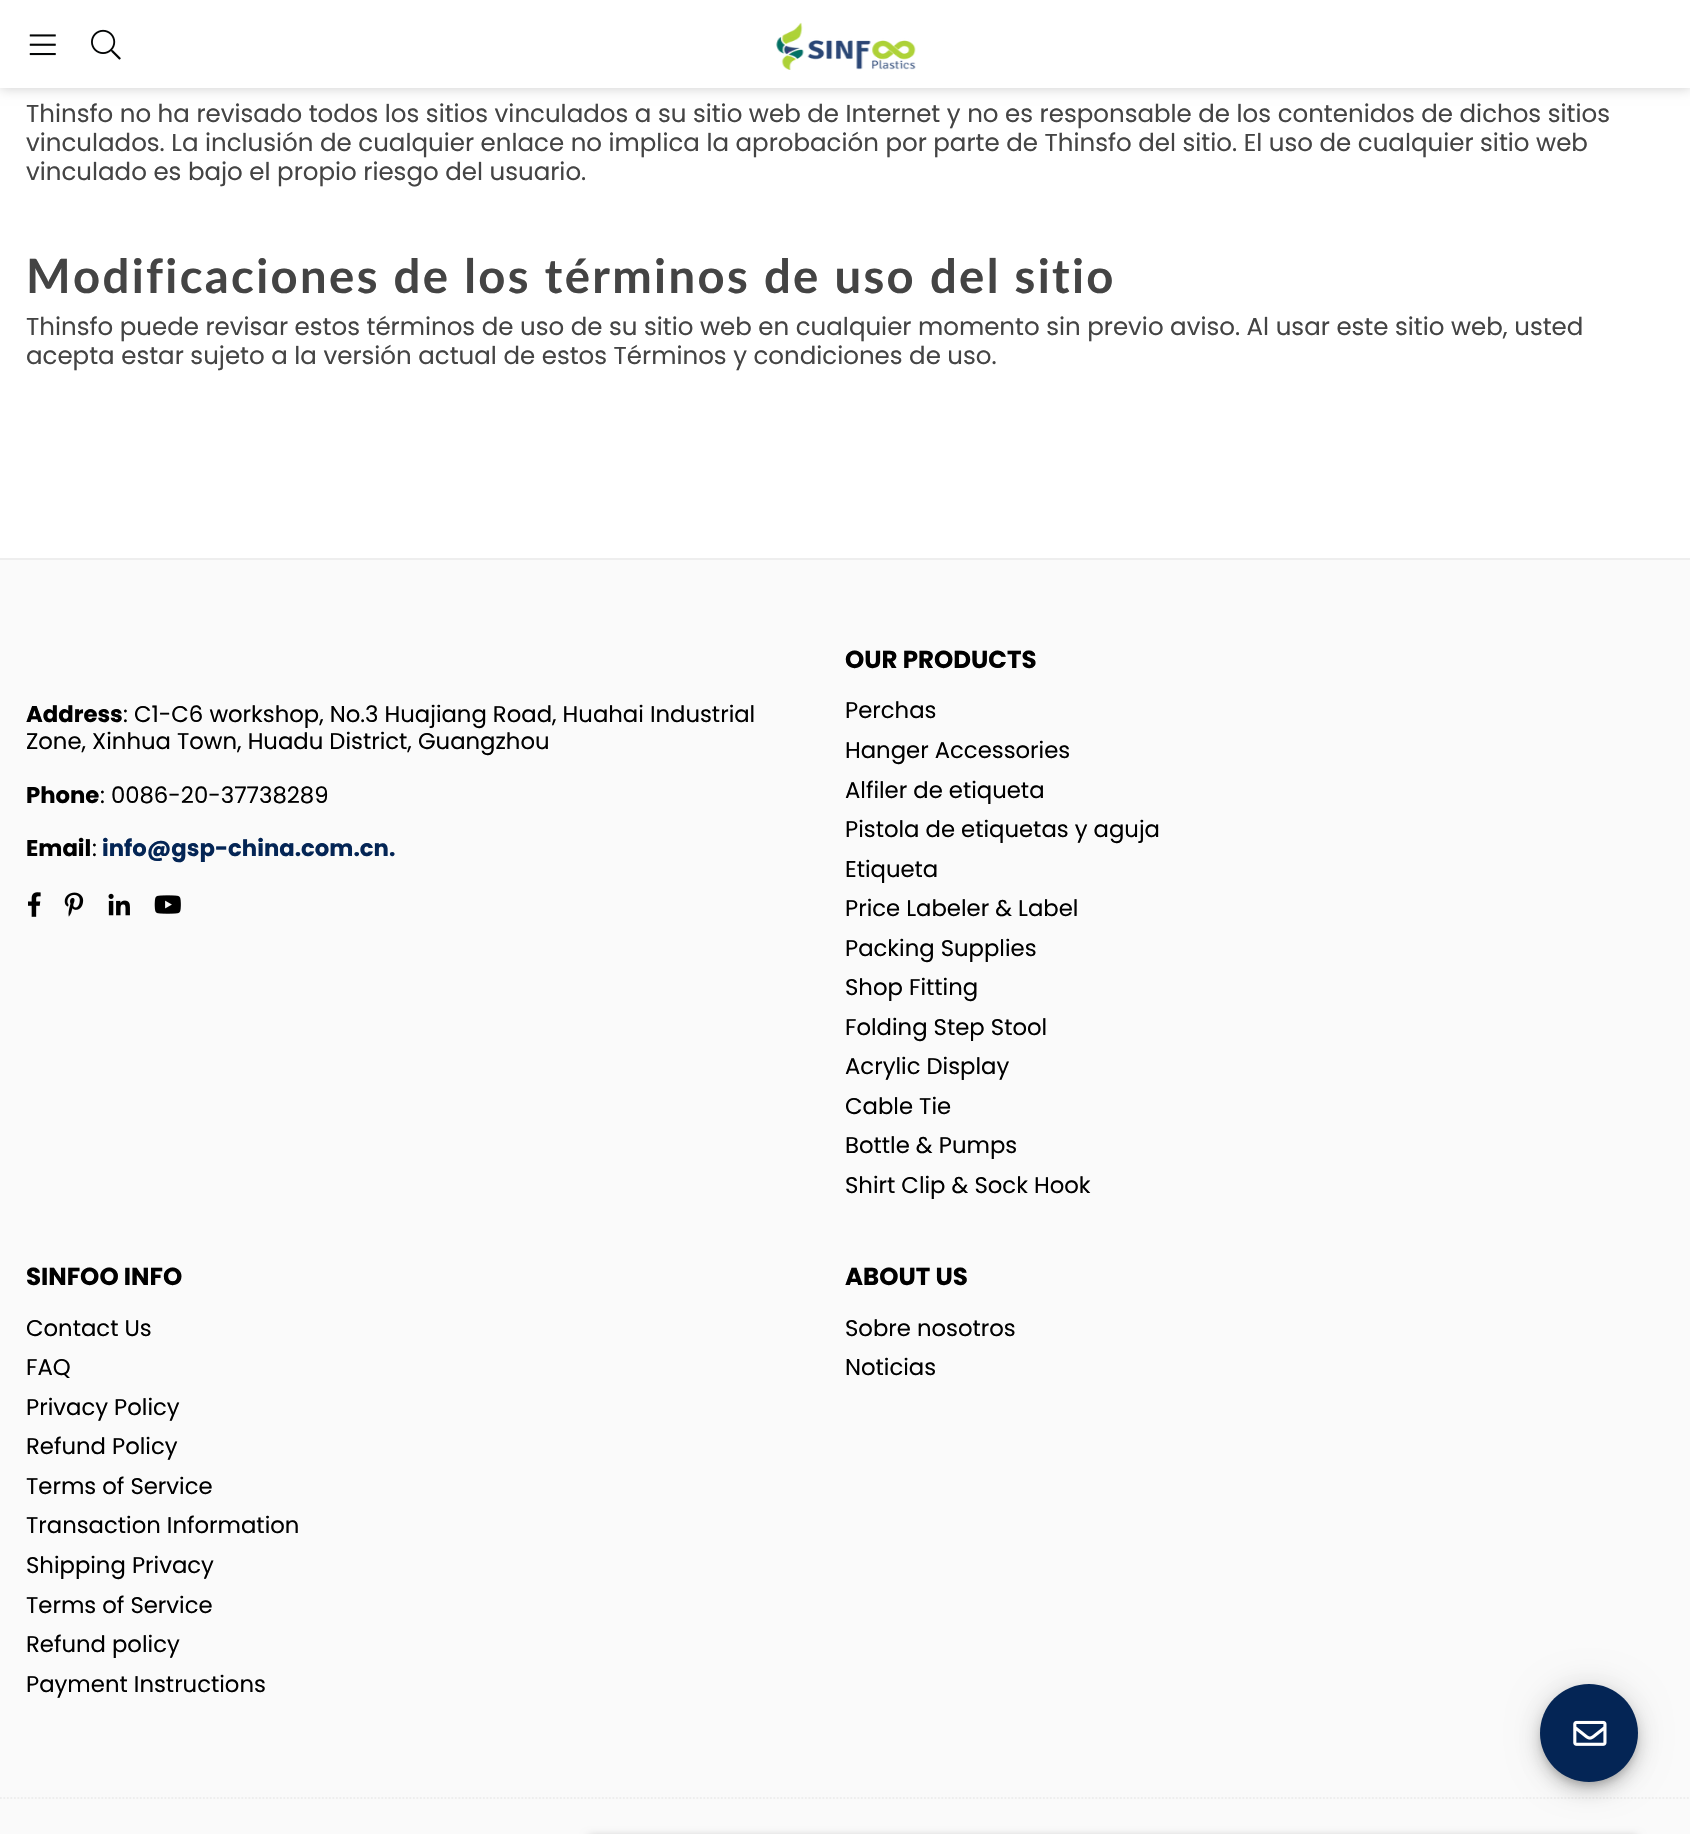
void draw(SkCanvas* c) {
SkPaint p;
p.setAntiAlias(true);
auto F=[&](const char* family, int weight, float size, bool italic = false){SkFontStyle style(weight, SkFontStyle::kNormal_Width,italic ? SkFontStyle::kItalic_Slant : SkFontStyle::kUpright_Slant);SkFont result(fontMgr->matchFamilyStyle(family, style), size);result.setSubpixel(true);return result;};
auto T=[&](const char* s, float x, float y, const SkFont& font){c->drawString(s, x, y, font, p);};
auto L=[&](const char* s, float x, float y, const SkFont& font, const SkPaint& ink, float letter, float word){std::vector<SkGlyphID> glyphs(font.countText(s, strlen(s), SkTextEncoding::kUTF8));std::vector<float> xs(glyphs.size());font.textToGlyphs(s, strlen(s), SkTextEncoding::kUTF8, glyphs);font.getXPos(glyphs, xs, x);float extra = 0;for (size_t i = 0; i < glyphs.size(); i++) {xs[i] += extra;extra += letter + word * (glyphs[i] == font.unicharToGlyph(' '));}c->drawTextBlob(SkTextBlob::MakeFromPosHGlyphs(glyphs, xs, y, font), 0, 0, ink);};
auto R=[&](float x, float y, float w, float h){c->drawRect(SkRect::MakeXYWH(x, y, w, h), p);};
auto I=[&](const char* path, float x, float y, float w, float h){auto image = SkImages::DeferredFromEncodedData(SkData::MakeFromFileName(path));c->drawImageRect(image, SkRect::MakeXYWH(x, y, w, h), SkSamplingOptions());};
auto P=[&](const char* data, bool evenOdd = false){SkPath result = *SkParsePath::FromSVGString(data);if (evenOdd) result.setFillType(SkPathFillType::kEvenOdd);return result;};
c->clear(0xffffffff);
p.setColor(0x33000000);
p.setMaskFilter(SkMaskFilter::MakeBlur(kNormal_SkBlurStyle, 6));
c->drawRect(SkRect::MakeXYWH(0,0,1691,88),p);
p.setMaskFilter(nullptr);
p.setColor(0xffffffff);
R(0,0,1690,88);
I("1.png",29,34,27,22);
I("2.png",91,29,30,31);
I("3.png",776,22,140,48);
auto f1 = F("Poppins",400,24.5);
p.setColor(0xff444444);
T("Thinsfo no ha revisado todos los sitios vinculados a su sitio web de Internet y no es responsable de los contenidos de dichos sitios",26,122,f1);
T("vinculados. La inclusión de cualquier enlace no implica la aprobación por parte de Thinsfo del sitio. El uso de cualquier sitio web",26,151,f1);
T("vinculado es bajo el propio riesgo del usuario.",26,180,f1);
auto f2 = F("Lato",700,47.25);
L("Modificaciones de los términos de uso del sitio",26,293,f2,p,2.35,0);
T("Thinsfo puede revisar estos términos de uso de su sitio web en cualquier momento sin previo aviso. Al usar este sitio web, usted",26,335,f1);
T("acepta estar sujeto a la versión actual de estos Términos y condiciones de uso.",26,364,f1);
p.setColor(0xfffafafa);
R(0,560,1690,1274);
p.setColor(0xffeeeeee);
R(0,558,1690,2);
auto f3 = F("Poppins",700,22.75);
p.setColor(0xff000000);
T("Address",26,722,f3);
auto f4 = F("Poppins",400,22.75);
T(": C1-C6 workshop, No.3 Huajiang Road, Huahai Industrial",123,722,f4);
T("Zone, Xinhua Town, Huadu District, Guangzhou",26,749,f4);
T("Phone",26,803,f3);
T(": 0086-20-37738289",100,803,f4);
T("Email",26,856,f3);
T(":",92,856,f4);
p.setColor(0xff042555);
T("info@gsp-china.com.cn.",102,856,f3);
I("4.png",28,892,13,25);
I("5.png",64,892,20,25);
I("6.png",108,893,22,23);
I("7.png",154,895,27,19);
auto f5 = F("Poppins",700,24.5);
p.setColor(0xff000000);
T("OUR PRODUCTS",845,668,f5);
T("Perchas",845,718,f4);
T("Hanger Accessories",845,758,f4);
T("Alfiler de etiqueta",845,798,f4);
T("Pistola de etiquetas y aguja",845,837,f4);
T("Etiqueta",845,877,f4);
T("Price Labeler & Label",845,916,f4);
T("Packing Supplies",845,956,f4);
T("Shop Fitting",845,995,f4);
T("Folding Step Stool",845,1035,f4);
T("Acrylic Display",845,1074,f4);
T("Cable Tie",845,1114,f4);
T("Bottle & Pumps",845,1153,f4);
T("Shirt Clip & Sock Hook",845,1193,f4);
T("SINFOO INFO",26,1285,f5);
T("Contact Us",26,1336,f4);
T("FAQ",26,1375,f4);
T("Privacy Policy",26,1415,f4);
T("Refund Policy",26,1454,f4);
T("Terms of Service",26,1494,f4);
T("Transaction Information",26,1533,f4);
T("Shipping Privacy",26,1573,f4);
T("Terms of Service",26,1613,f4);
T("Refund policy",26,1652,f4);
T("Payment Instructions",26,1692,f4);
T("ABOUT US",845,1285,f5);
T("Sobre nosotros",845,1336,f4);
T("Noticias",845,1375,f4);
p.setStroke(true);
p.setStrokeWidth(1.8);
p.setColor(0xffeeeeee);
p.setPathEffect(SkDashPathEffect::Make({{1.75f,1.75f}}, 0));
c->drawPath(P("M0 1798h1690.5"),p);
p.setPathEffect(nullptr);
p.setStroke(false);
p.setColor(0x1f000000);
p.setMaskFilter(SkMaskFilter::MakeBlur(kNormal_SkBlurStyle, 16));
c->drawRoundRect(SkRect::MakeXYWH(1540,1685,98,98),49,49,p);
p.setMaskFilter(nullptr);
p.setColor(0x24000000);
p.setMaskFilter(SkMaskFilter::MakeBlur(kNormal_SkBlurStyle, 9));
c->drawRoundRect(SkRect::MakeXYWH(1540,1694,98,98),49,49,p);
p.setMaskFilter(nullptr);
p.setColor(0x33000000);
p.setMaskFilter(SkMaskFilter::MakeBlur(kNormal_SkBlurStyle, 4.5));
c->drawRoundRect(SkRect::MakeXYWH(1542,1691,94,94),47,47,p);
p.setMaskFilter(nullptr);
p.setColor(0xff042555);
c->drawCircle(1589,1733,49,p);
I("8.png",1573,1720,34,26);
p.setColor(0x33000000);
p.setMaskFilter(SkMaskFilter::MakeBlur(kNormal_SkBlurStyle, 4.5));
c->drawRoundRect(SkRect::MakeXYWH(588,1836,1050,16),4,4,p);
p.setMaskFilter(nullptr);
}
